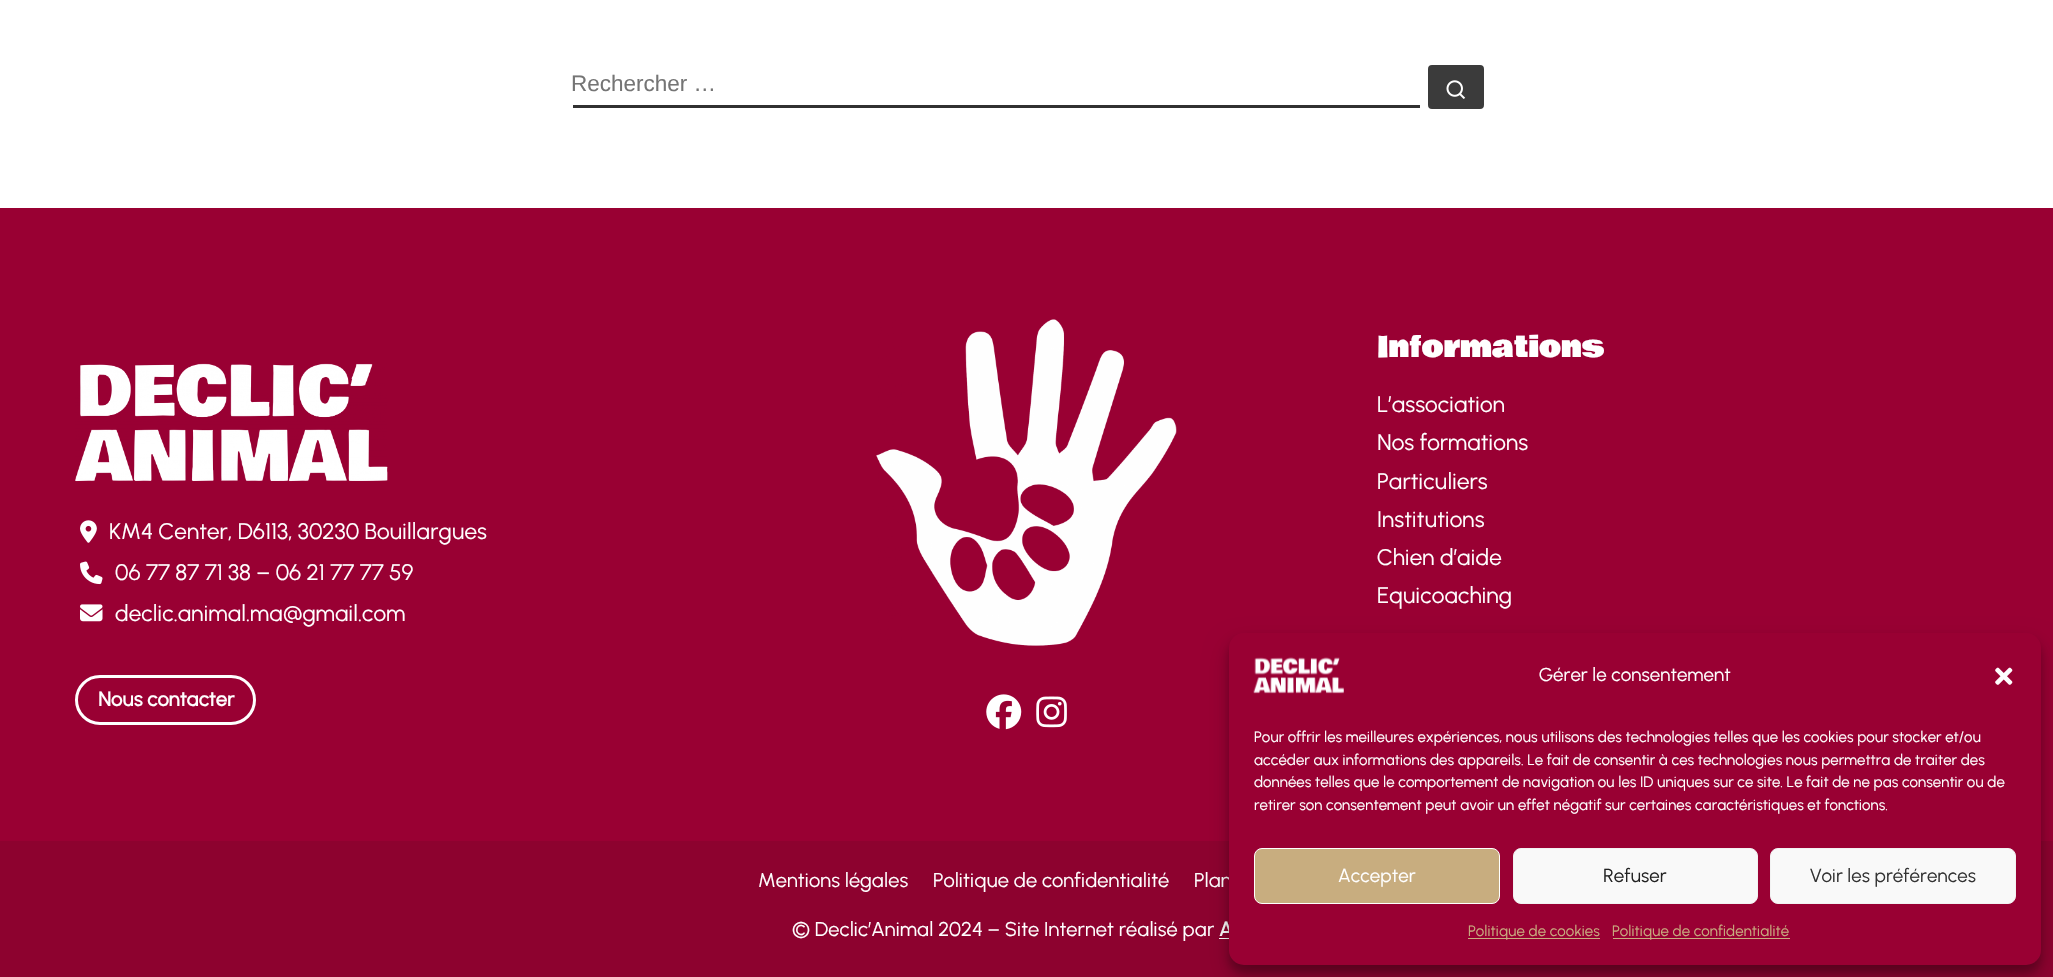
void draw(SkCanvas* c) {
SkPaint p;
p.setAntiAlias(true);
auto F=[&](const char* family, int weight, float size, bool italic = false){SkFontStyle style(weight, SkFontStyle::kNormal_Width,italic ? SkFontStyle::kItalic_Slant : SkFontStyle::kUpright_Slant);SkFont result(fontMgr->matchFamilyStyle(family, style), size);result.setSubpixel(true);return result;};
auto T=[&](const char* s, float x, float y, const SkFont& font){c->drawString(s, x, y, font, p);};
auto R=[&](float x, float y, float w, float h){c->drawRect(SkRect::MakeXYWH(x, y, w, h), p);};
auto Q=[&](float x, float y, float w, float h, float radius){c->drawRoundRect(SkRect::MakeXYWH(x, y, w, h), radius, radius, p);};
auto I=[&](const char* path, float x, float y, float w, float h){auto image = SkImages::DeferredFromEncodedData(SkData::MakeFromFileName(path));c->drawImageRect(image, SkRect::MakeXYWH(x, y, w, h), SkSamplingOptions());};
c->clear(0xffffffff);
p.setColor(0xff313131);
R(573,105,847,3);
auto f1 = F("Liberation Sans",400,22.5);
p.setColor(0xff757575);
T("Rechercher …",571,91,f1);
p.setColor(0xff3b3b3b);
c->drawRoundRect(SkRect::MakeXYWH(1429.5,66.5,53,41),2.5,2.5,p);
p.setStroke(true);
p.setStrokeWidth(3);
c->drawRoundRect(SkRect::MakeXYWH(1429.5,66.5,53,41),2.5,2.5,p);
I("1.png",1446,80,20,19);
p.setStroke(false);
p.setColor(0xff990033);
R(0,208,2053,633);
I("2.png",75,363,313,119);
I("3.png",80,520,17,23);
auto f2 = F("Urbanist",400,22.5);
p.setColor(0xffffffff);
T("KM4 Center, D6113, 30230 Bouillargues",109,539,f2);
I("4.png",80,561,23,24);
T("06 77 87 71 38 – 06 21 77 77 59",115,580,f2);
I("5.png",80,604,23,18);
T("declic.animal.ma@gmail.com",115,621,f2);
p.setStroke(true);
c->drawRoundRect(SkRect::MakeXYWH(76.5,676.5,178,47),23.5,23.5,p);
auto f3 = F("Urbanist",700,20);
p.setStroke(false);
T("Nous contacter",98,706,f3);
I("6.png",876,319,301,327);
I("7.png",986,694,36,36);
I("8.png",1036,696,31,32);
auto f4 = F("Bowlby One",400,28.75);
T("Informations",1377,357,f4);
T("L’association",1377,412,f2);
T("Nos formations",1377,450,f2);
T("Particuliers",1377,489,f2);
T("Institutions",1377,527,f2);
T("Chien d’aide",1377,565,f2);
T("Equicoaching",1377,603,f2);
p.setColor(0xff8d022f);
R(0,841,2053,136);
auto f5 = F("Urbanist",400,20);
p.setColor(0xffffffff);
T("Mentions légales",758,887,f5);
T("Politique de confidentialité",933,887,f5);
T("Plan",1194,887,f5);
T("© Declic’Animal 2024 – Site Internet réalisé par",792,936,f5);
T("A",1219,936,f3);
R(1219,938,10,1);
p.setColor(0x3b000000);
p.setMaskFilter(SkMaskFilter::MakeBlur(kNormal_SkBlurStyle, 4));
c->drawRoundRect(SkRect::MakeXYWH(1229,640,812,333),15,15,p);
p.setMaskFilter(nullptr);
p.setColor(0x30000000);
p.setMaskFilter(SkMaskFilter::MakeBlur(kNormal_SkBlurStyle, 12.5));
c->drawRoundRect(SkRect::MakeXYWH(1229,645,812,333),15,15,p);
p.setMaskFilter(nullptr);
p.setColor(0xff990033);
Q(1229,633,812,332,15);
I("9.png",1253,657,91,37);
auto f6 = F("Urbanist",400,18.75);
p.setColor(0xffffffff);
T("Gérer le consentement",1539,681,f6);
I("10.png",1995,667,18,18);
auto f7 = F("Urbanist",400,15);
T("Pour offrir les meilleures expériences, nous utilisons des technologies telles que les cookies pour stocker et/ou",1254,742,f7);
T("accéder aux informations des appareils. Le fait de consentir à ces technologies nous permettra de traiter des",1254,765,f7);
T("données telles que le comportement de navigation ou les ID uniques sur ce site. Le fait de ne pas consentir ou de",1254,787,f7);
T("retirer son consentement peut avoir un effet négatif sur certaines caractéristiques et fonctions.",1254,810,f7);
p.setColor(0xffc8ad7f);
c->drawRoundRect(SkRect::MakeXYWH(1254.5,848.5,245,55),7.5,7.5,p);
p.setStroke(true);
p.setStrokeWidth(1);
p.setColor(0xffffffff);
c->drawRoundRect(SkRect::MakeXYWH(1254.5,848.5,245,55),7.5,7.5,p);
p.setStroke(false);
T("Accepter",1338,882,f6);
p.setColor(0xfff9f9f9);
c->drawRoundRect(SkRect::MakeXYWH(1513.5,848.5,244,55),7.5,7.5,p);
p.setStroke(true);
p.setColor(0xfff2f2f2);
c->drawRoundRect(SkRect::MakeXYWH(1513.5,848.5,244,55),7.5,7.5,p);
p.setStroke(false);
p.setColor(0xff222222);
T("Refuser",1603,882,f6);
p.setColor(0xfff9f9f9);
c->drawRoundRect(SkRect::MakeXYWH(1770.5,848.5,245,55),7.5,7.5,p);
p.setStroke(true);
p.setColor(0xfff2f2f2);
c->drawRoundRect(SkRect::MakeXYWH(1770.5,848.5,245,55),7.5,7.5,p);
p.setStroke(false);
p.setColor(0xff333333);
T("Voir les préférences",1810,882,f6);
p.setColor(0xffc8ad7f);
R(1468,938,132,1);
T("Politique de cookies",1468,936,f7);
R(1613,938,177,1);
T("Politique de confidentialité",1612,936,f7);
}
